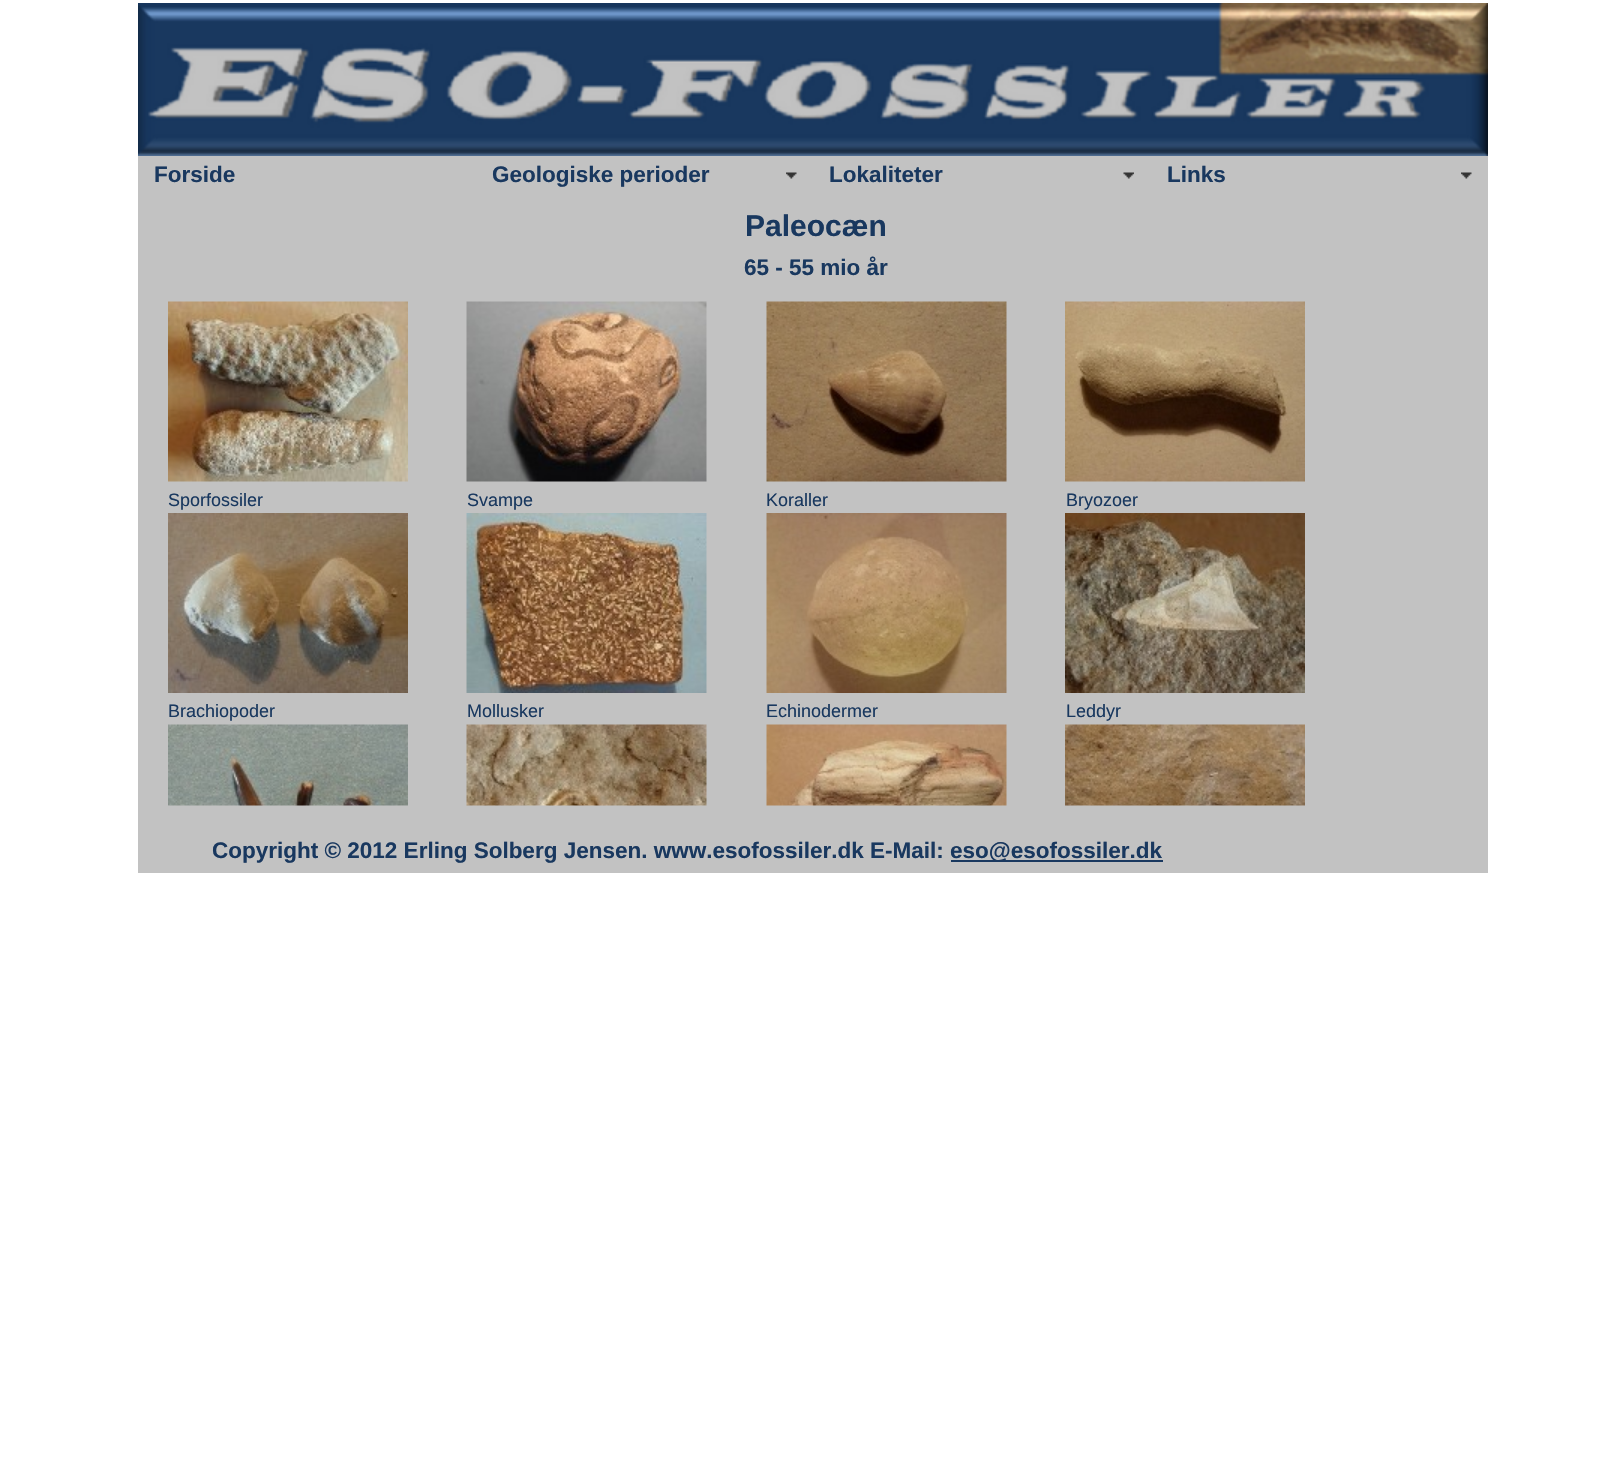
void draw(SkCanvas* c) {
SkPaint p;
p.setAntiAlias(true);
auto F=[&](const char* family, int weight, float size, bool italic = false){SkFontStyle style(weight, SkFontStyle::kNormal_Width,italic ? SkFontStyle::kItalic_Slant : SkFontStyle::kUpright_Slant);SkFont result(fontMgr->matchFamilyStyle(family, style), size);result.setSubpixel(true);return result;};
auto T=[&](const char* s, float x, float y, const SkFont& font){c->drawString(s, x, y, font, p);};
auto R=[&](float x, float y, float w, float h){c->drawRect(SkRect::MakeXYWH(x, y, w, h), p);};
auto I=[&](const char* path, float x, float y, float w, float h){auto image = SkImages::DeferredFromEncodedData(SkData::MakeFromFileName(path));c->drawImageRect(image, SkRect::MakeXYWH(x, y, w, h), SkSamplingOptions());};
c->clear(0xffffffff);
p.setColor(0xffc2c2c2);
R(138,156,1350,717);
I("1.png",138,3,1350,153);
auto f1 = F("Liberation Sans",700,22.5);
p.setColor(0xff19385f);
T("Forside",154,182,f1);
I("2.png",786,172,11,7);
T("Geologiske perioder",492,182,f1);
I("3.png",1123,172,11,7);
T("Lokaliteter",829,182,f1);
I("2.png",1461,172,11,7);
T("Links",1167,182,f1);
auto f2 = F("Liberation Sans",700,30);
T("Paleocæn",745,236,f2);
T("65 - 55 mio år",744,275,f1);
I("4.png",168,301,240,181);
I("5.png",466,301,241,181);
I("6.png",766,301,241,181);
I("7.png",1065,301,240,181);
auto f3 = F("Liberation Sans",400,18);
T("Sporfossiler",168,506,f3);
T("Svampe",467,506,f3);
T("Koraller",766,506,f3);
T("Bryozoer",1066,506,f3);
I("8.png",168,513,240,180);
I("9.png",466,513,241,180);
I("10.png",766,513,241,180);
I("11.png",1065,513,240,180);
T("Brachiopoder",168,717,f3);
T("Mollusker",467,717,f3);
T("Echinodermer",766,717,f3);
T("Leddyr",1066,717,f3);
I("12.png",168,724,240,82);
I("13.png",466,724,241,82);
I("14.png",766,724,241,82);
I("15.png",1065,724,240,82);
T("Copyright © 2012 Erling Solberg Jensen. www.esofossiler.dk E-Mail:",212,858,f1);
R(951,860,212,2);
T("eso@esofossiler.dk",950,858,f1);
}
